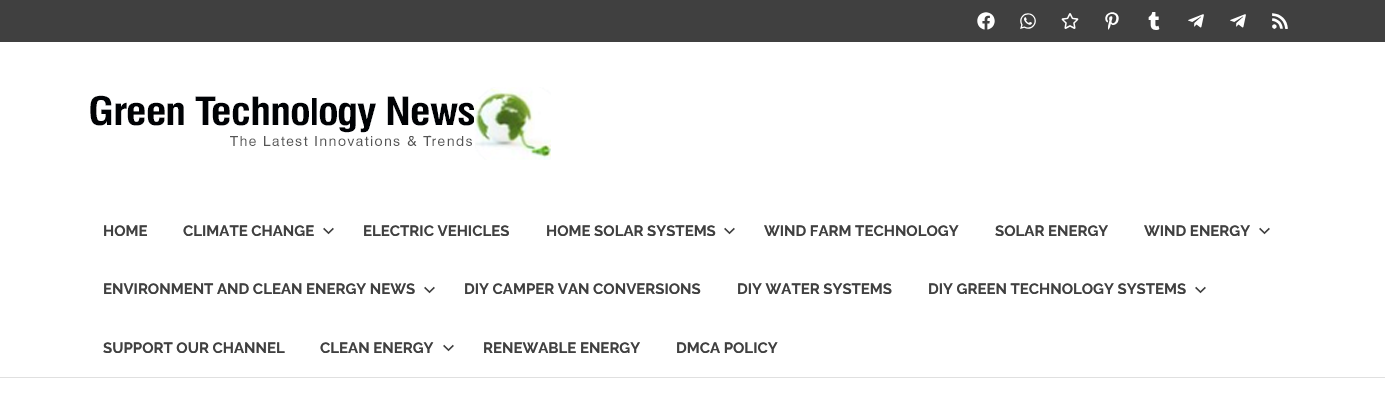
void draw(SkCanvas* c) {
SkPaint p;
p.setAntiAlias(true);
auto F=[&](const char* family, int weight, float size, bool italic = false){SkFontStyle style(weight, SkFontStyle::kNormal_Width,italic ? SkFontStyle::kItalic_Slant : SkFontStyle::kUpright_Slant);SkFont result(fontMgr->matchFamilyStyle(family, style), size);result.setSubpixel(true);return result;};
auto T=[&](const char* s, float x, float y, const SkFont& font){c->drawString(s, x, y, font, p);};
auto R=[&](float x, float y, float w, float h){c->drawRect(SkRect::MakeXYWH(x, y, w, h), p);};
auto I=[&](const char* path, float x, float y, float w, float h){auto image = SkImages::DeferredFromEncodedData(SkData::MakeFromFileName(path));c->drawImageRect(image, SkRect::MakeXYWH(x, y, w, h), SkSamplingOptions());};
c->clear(0xffffffff);
p.setColor(0xff404040);
R(0,0,1385,42);
I("1.png",977,12,18,18);
I("2.png",1020,13,16,16);
I("3.png",1061,13,18,16);
I("4.png",1105,12,14,18);
I("5.png",1148,12,12,18);
I("6.png",1188,14,16,14);
I("6.png",1230,14,16,14);
I("7.png",1272,13,16,16);
p.setColor(0xffe0e0e0);
R(0,377,1385,1);
I("8.png",90,87,461,73);
auto f1 = F("Raleway",700,15);
p.setColor(0xff404040);
T("HOME",103,236,f1);
T("CLIMATE CHANGE",183,236,f1);
I("9.png",323,227,11,8);
T("ELECTRIC VEHICLES",363,236,f1);
T("HOME SOLAR SYSTEMS",546,236,f1);
I("9.png",724,227,11,8);
T("WIND FARM TECHNOLOGY",764,236,f1);
T("SOLAR ENERGY",995,236,f1);
T("WIND ENERGY",1144,236,f1);
I("9.png",1259,227,11,8);
T("ENVIRONMENT AND CLEAN ENERGY NEWS",103,294,f1);
I("9.png",424,286,11,8);
T("DIY CAMPER VAN CONVERSIONS",464,294,f1);
T("DIY WATER SYSTEMS",737,294,f1);
T("DIY GREEN TECHNOLOGY SYSTEMS",928,294,f1);
I("9.png",1195,286,11,8);
T("SUPPORT OUR CHANNEL",103,353,f1);
T("CLEAN ENERGY",320,353,f1);
I("9.png",443,344,11,8);
T("RENEWABLE ENERGY",483,353,f1);
T("DMCA POLICY",676,353,f1);
}
